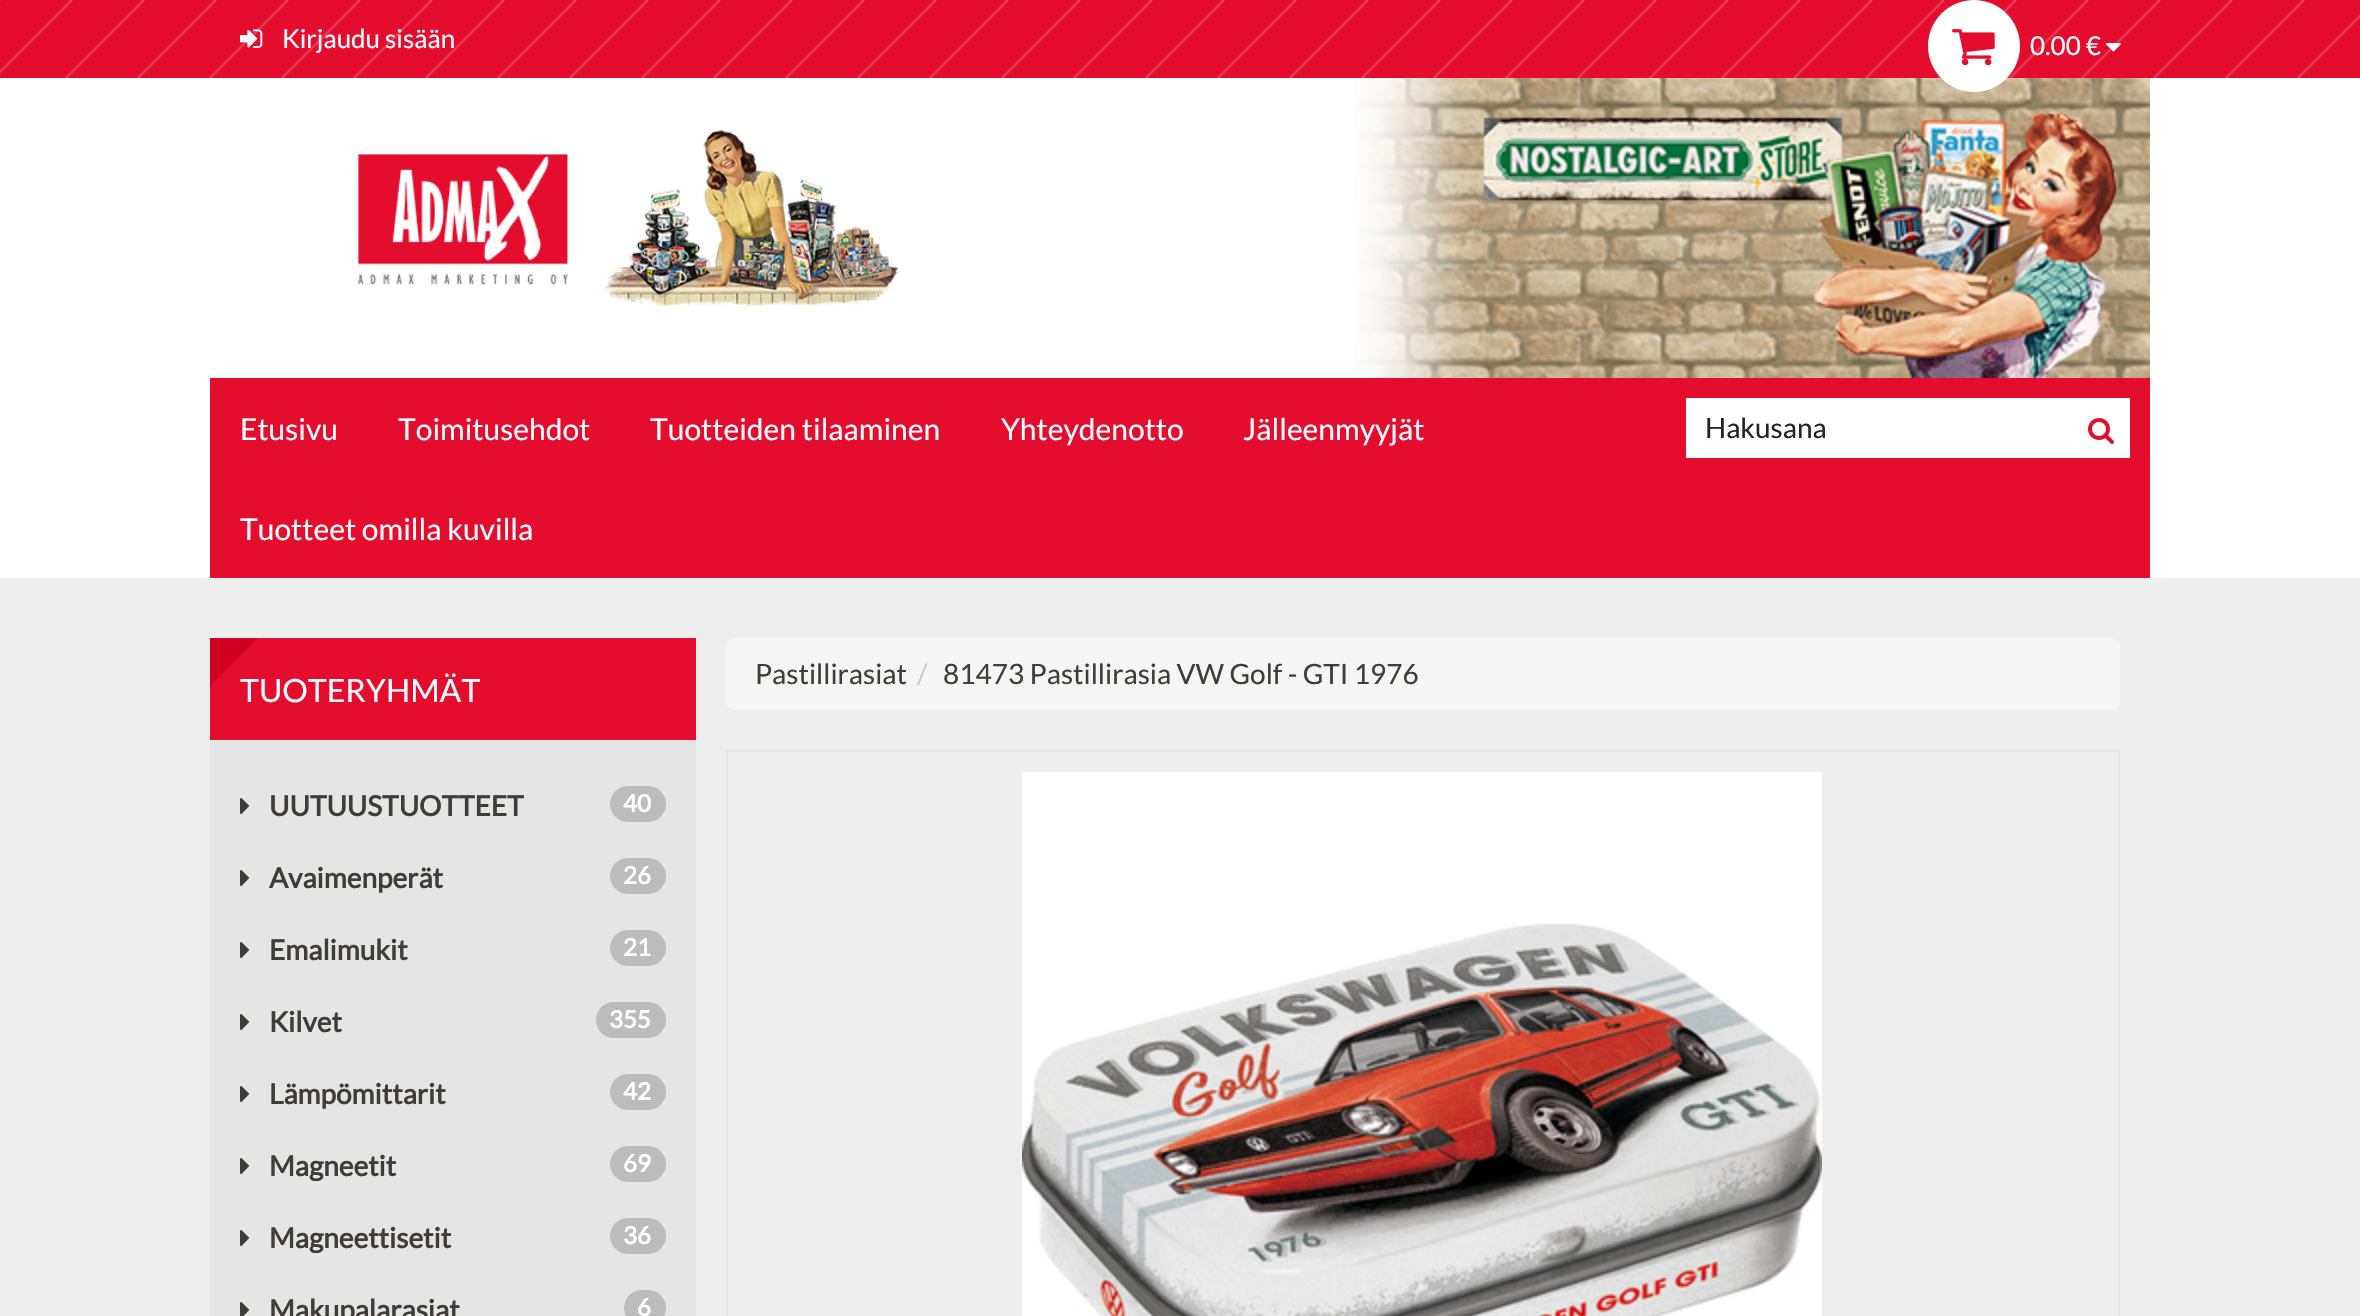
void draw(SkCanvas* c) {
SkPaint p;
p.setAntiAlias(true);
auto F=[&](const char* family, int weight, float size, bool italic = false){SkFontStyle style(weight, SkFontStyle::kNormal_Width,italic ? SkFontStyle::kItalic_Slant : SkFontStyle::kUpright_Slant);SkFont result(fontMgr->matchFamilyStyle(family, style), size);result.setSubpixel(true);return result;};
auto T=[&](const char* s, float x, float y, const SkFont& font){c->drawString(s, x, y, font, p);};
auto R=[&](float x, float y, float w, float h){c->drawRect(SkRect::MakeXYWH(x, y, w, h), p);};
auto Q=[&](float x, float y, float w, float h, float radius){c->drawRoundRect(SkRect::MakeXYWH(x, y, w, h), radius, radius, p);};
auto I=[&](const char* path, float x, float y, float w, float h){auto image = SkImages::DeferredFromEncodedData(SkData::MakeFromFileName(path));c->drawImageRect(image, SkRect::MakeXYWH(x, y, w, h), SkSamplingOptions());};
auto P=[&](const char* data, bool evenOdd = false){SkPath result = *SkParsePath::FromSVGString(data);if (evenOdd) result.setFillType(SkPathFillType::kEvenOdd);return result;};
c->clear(0xffeeeeee);
p.setColor(0xffffffff);
R(0,78,2360,500);
I("1.png",0,0,2360,78);
I("2.png",240,29,23,19);
auto f1 = F("Lato",400,26);
T("Kirjaudu sisään",282,48,f1);
I("5.png",1354,78,796,300);
c->drawCircle(1974,46,46,p);
I("3.png",1952,29,43,37);
T("0.00 €",2030,55,f1);
I("4.png",2106,43,15,9);
I("6.png",358,128,541,180);
p.setColor(0xffe50d2e);
R(210,378,1940,200);
auto f2 = F("Lato",400,30);
p.setColor(0xffffffff);
T("Etusivu",240,440,f2);
T("Toimitusehdot",398,440,f2);
T("Tuotteiden tilaaminen",650,440,f2);
T("Yhteydenotto",1001,440,f2);
T("Jälleenmyyjät",1243,440,f2);
T("Tuotteet omilla kuvilla",240,540,f2);
R(1686,398,444,60);
auto f3 = F("Lato",400,28);
p.setColor(0xff232323);
T("Hakusana",1705,438,f3);
I("7.png",2088,418,26,26);
p.setColor(0xffe50d2e);
R(210,638,486,102);
auto f4 = F("Lato",400,32);
p.setColor(0xffffffff);
T("TUOTERYHMÄT",240,702,f4);
p.setColor(0xffd10020);
c->drawPath(P("M210 638h48l-48 48z"),p);
p.setColor(0xffe5e5e5);
R(210,740,486,576);
I("8.png",240,798,9,16);
auto f5 = F("Lato",700,28);
p.setColor(0xff3e3d39);
T("UUTUUSTUOTTEET",269,816,f5);
p.setColor(0xffbcbcbc);
Q(610,786,56,36,18);
auto f6 = F("Lato",700,24);
p.setColor(0xffffffff);
T("40",623,812,f6);
I("8.png",240,870,9,16);
p.setColor(0xff3e3d39);
T("Avaimenperät",269,888,f5);
p.setColor(0xffbcbcbc);
Q(610,858,56,36,18);
p.setColor(0xffffffff);
T("26",623,884,f6);
I("8.png",240,942,9,16);
p.setColor(0xff3e3d39);
T("Emalimukit",269,960,f5);
p.setColor(0xffbcbcbc);
Q(610,930,56,36,18);
p.setColor(0xffffffff);
T("21",623,956,f6);
I("8.png",240,1014,9,16);
p.setColor(0xff3e3d39);
T("Kilvet",269,1032,f5);
p.setColor(0xffbcbcbc);
Q(596,1002,70,36,18);
p.setColor(0xffffffff);
T("355",609,1028,f6);
I("8.png",240,1086,9,16);
p.setColor(0xff3e3d39);
T("Lämpömittarit",269,1104,f5);
p.setColor(0xffbcbcbc);
Q(610,1074,56,36,18);
p.setColor(0xffffffff);
T("42",623,1100,f6);
I("8.png",240,1158,9,16);
p.setColor(0xff3e3d39);
T("Magneetit",269,1176,f5);
p.setColor(0xffbcbcbc);
Q(610,1146,56,36,18);
p.setColor(0xffffffff);
T("69",623,1172,f6);
I("8.png",240,1230,9,16);
p.setColor(0xff3e3d39);
T("Magneettisetit",269,1248,f5);
p.setColor(0xffbcbcbc);
Q(610,1218,56,36,18);
p.setColor(0xffffffff);
T("36",623,1244,f6);
I("9.png",240,1302,9,14);
p.setColor(0xff3e3d39);
T("Makupalarasiat",269,1320,f5);
p.setColor(0xffbcbcbc);
Q(624,1290,42,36,18);
p.setColor(0xffffffff);
T("6",637,1316,f6);
p.setColor(0xfff5f5f5);
Q(726,638,1394,72,8);
p.setColor(0xff3e3d39);
T("Pastillirasiat",755,684,f3);
p.setColor(0xffcccccc);
T("/",917,684,f3);
p.setColor(0xff3e3d39);
T("81473 Pastillirasia VW Golf - GTI 1976",943,684,f3);
p.setStroke(true);
p.setStrokeWidth(2);
p.setColor(0xffe7e7e7);
c->drawRect(SkRect::MakeXYWH(727,751,1392,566),p);
I("10.png",1022,772,800,544);
}
